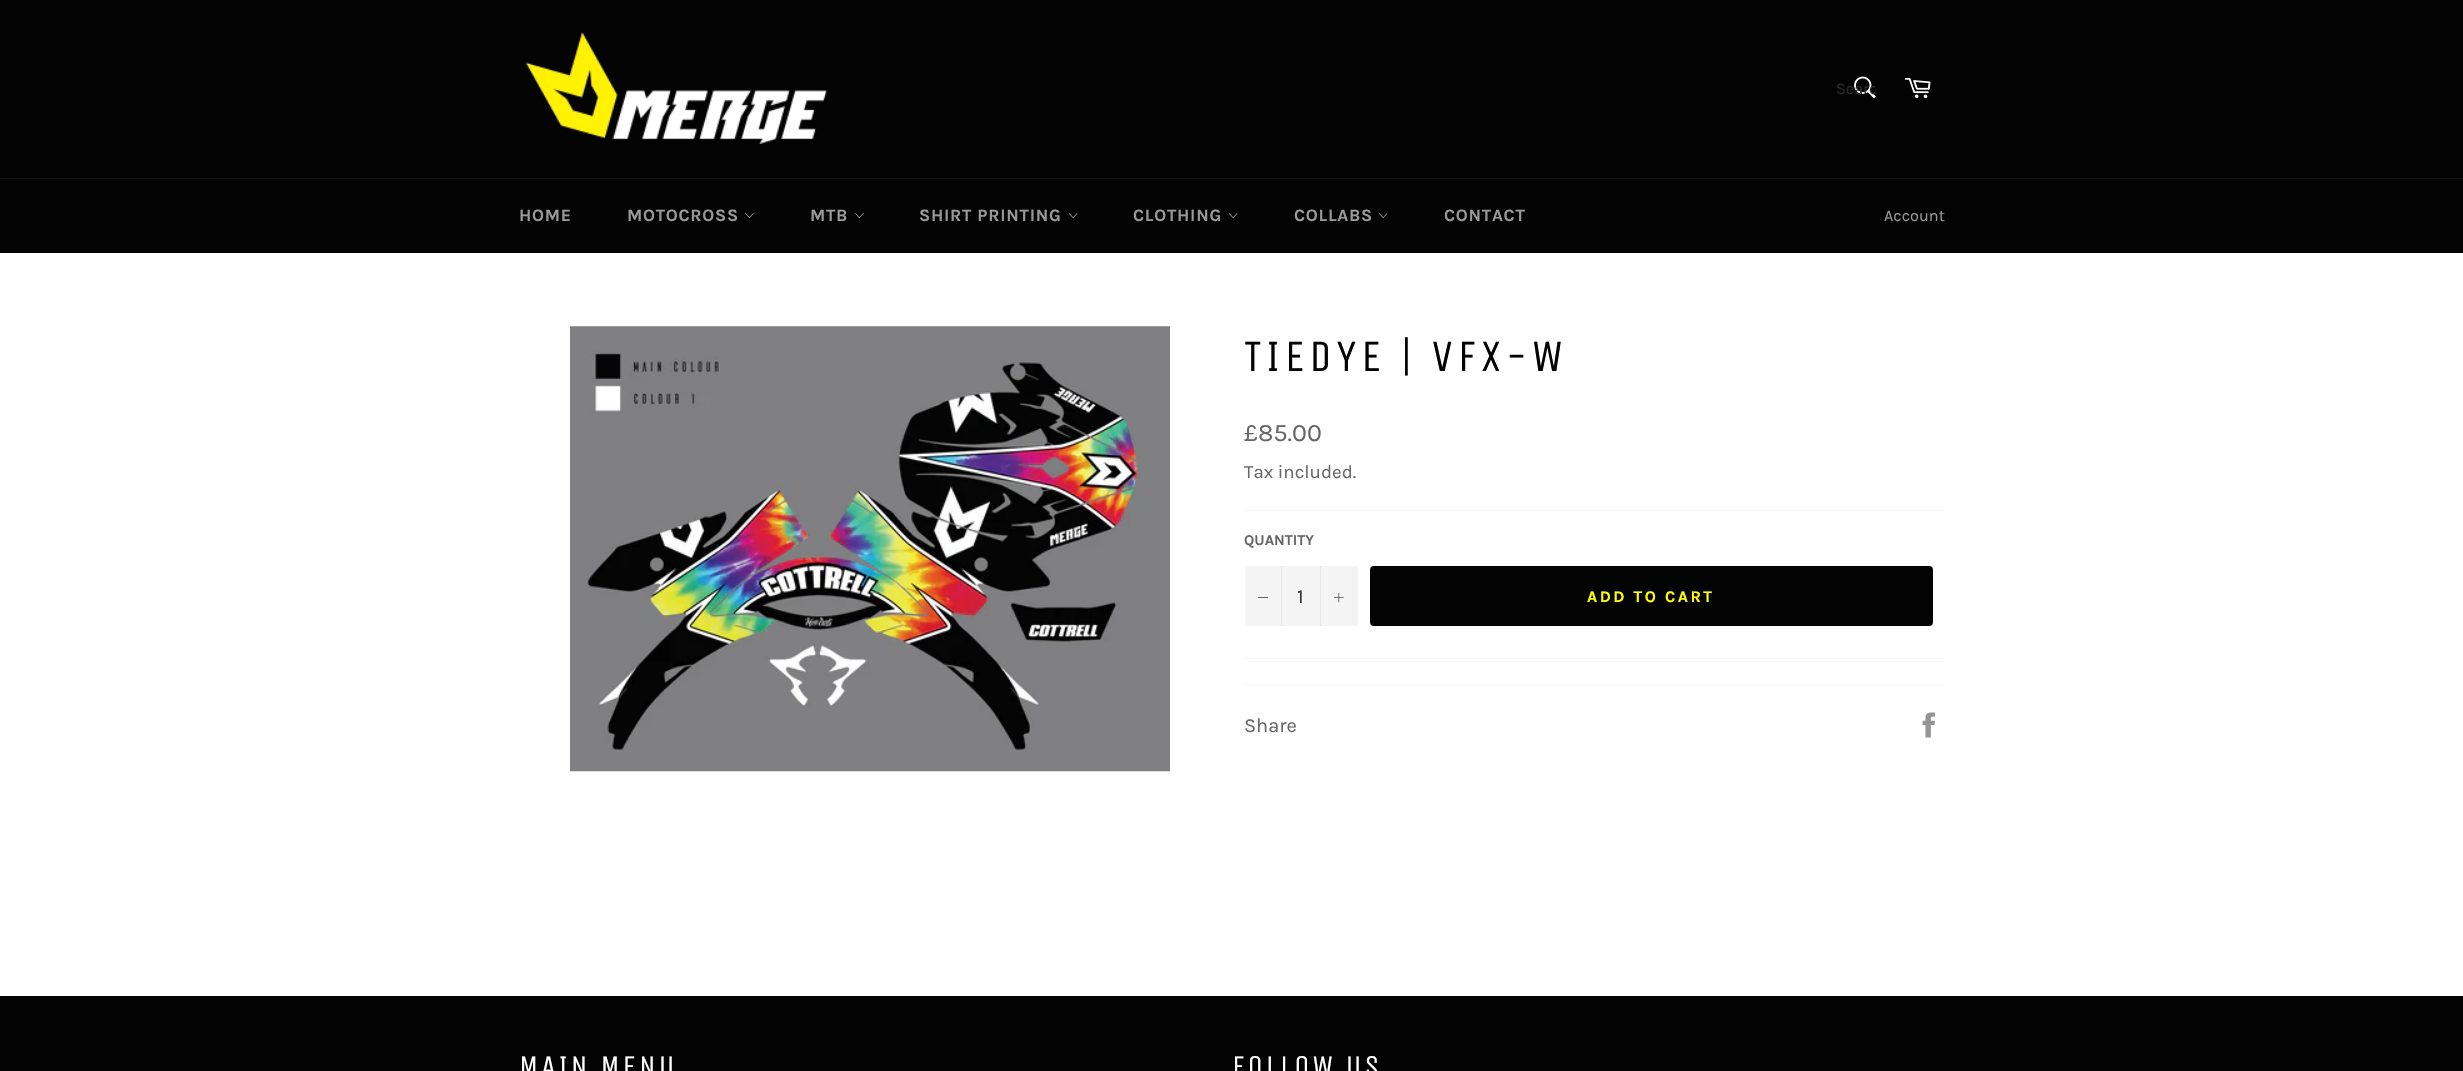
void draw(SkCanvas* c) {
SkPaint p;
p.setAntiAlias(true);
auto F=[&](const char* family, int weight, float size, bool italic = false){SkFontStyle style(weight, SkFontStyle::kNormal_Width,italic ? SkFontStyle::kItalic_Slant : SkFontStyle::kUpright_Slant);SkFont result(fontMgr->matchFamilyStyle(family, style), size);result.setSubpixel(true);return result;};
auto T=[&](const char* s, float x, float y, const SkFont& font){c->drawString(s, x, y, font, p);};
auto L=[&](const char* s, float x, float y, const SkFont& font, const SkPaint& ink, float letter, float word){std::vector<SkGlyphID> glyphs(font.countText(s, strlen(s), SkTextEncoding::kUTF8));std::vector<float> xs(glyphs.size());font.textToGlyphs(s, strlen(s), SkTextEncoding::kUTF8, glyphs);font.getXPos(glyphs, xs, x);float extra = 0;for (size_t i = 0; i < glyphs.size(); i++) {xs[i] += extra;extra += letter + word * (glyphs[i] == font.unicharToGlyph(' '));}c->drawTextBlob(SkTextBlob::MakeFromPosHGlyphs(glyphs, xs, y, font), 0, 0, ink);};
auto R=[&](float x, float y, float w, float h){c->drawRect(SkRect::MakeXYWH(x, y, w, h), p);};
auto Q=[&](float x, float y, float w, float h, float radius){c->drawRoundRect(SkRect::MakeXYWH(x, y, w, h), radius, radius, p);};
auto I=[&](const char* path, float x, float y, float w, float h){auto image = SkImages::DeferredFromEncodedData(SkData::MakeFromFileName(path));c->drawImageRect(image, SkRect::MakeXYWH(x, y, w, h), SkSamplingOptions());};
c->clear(0xff030303);
I("1.png",526,32,301,112);
I("2.png",1854,76,22,23);
c->save();
c->clipRect(SkRect::MakeXYWH(1835,80,40,19));
auto f1 = F("Karla",400,16.25);
p.setColor(0xff2a2a2a);
T("Searc",1836,94,f1);
c->restore();
I("3.png",1904,78,27,21);
p.setColor(0xff101010);
R(0,178,2463,1);
auto f2 = F("Karla",700,17.5);
p.setColor(0xff9a9a9a);
L("HOME",519,221,f2,p,.75,0);
L("MOTOCROSS",627,221,f2,p,.75,0);
I("4.png",745,213,9,6);
L("MTB",810,221,f2,p,.75,0);
I("4.png",855,213,9,6);
L("SHIRT PRINTING",919,221,f2,p,.75,0);
I("5.png",1068,213,10,6);
L("CLOTHING",1133,221,f2,p,.75,0);
I("5.png",1228,213,10,6);
L("COLLABS",1294,221,f2,p,.75,0);
I("5.png",1378,213,10,6);
L("CONTACT",1444,221,f2,p,.75,0);
T("Account",1884,221,f1);
p.setColor(0xffffffff);
R(0,253,2463,743);
I("6.png",570,326,600,446);
auto f3 = F("Unica One",400,45);
p.setColor(0xff030303);
L("TIEDYE | VFX-W",1244,371,f3,p,4.5,0);
auto f4 = F("Karla",400,25);
p.setColor(0xff666666);
T("£85.00",1244,441,f4);
auto f5 = F("Karla",400,18.75);
T("Tax included.",1244,478,f5);
p.setColor(0xfff7f7f7);
R(1245,510,700,1);
auto f6 = F("Karla",700,15);
p.setColor(0xff666666);
T("QUANTITY",1244,545,f6);
p.setColor(0xfff4f4f4);
R(1245,566,113,60);
p.setColor(0xffe7e7e7);
R(1281,566,1,60);
p.setColor(0xff666666);
R(1258,597,10,1);
auto f7 = F("Karla",400,20);
p.setColor(0xff333333);
T("1",1297,603,f7);
p.setColor(0xffe7e7e7);
R(1320,566,1,60);
I("7.png",1334,593,10,10);
p.setColor(0xff030303);
Q(1370,566,563,60,4);
auto f8 = F("Karla",700,16.25);
p.setColor(0xffffff00);
L("ADD TO CART",1587,602,f8,p,2.5,0);
p.setColor(0xfff7f7f7);
R(1245,658,700,1);
R(1245,684,700,1);
p.setColor(0xff666666);
T("Share",1244,732,f7);
I("8.png",1922,712,13,26);
auto f9 = F("Unica One",400,30);
p.setColor(0xffffffff);
L("MAIN MENU",519,1076,f9,p,3,0);
L("FOLLOW US",1232,1076,f9,p,3,0);
}
